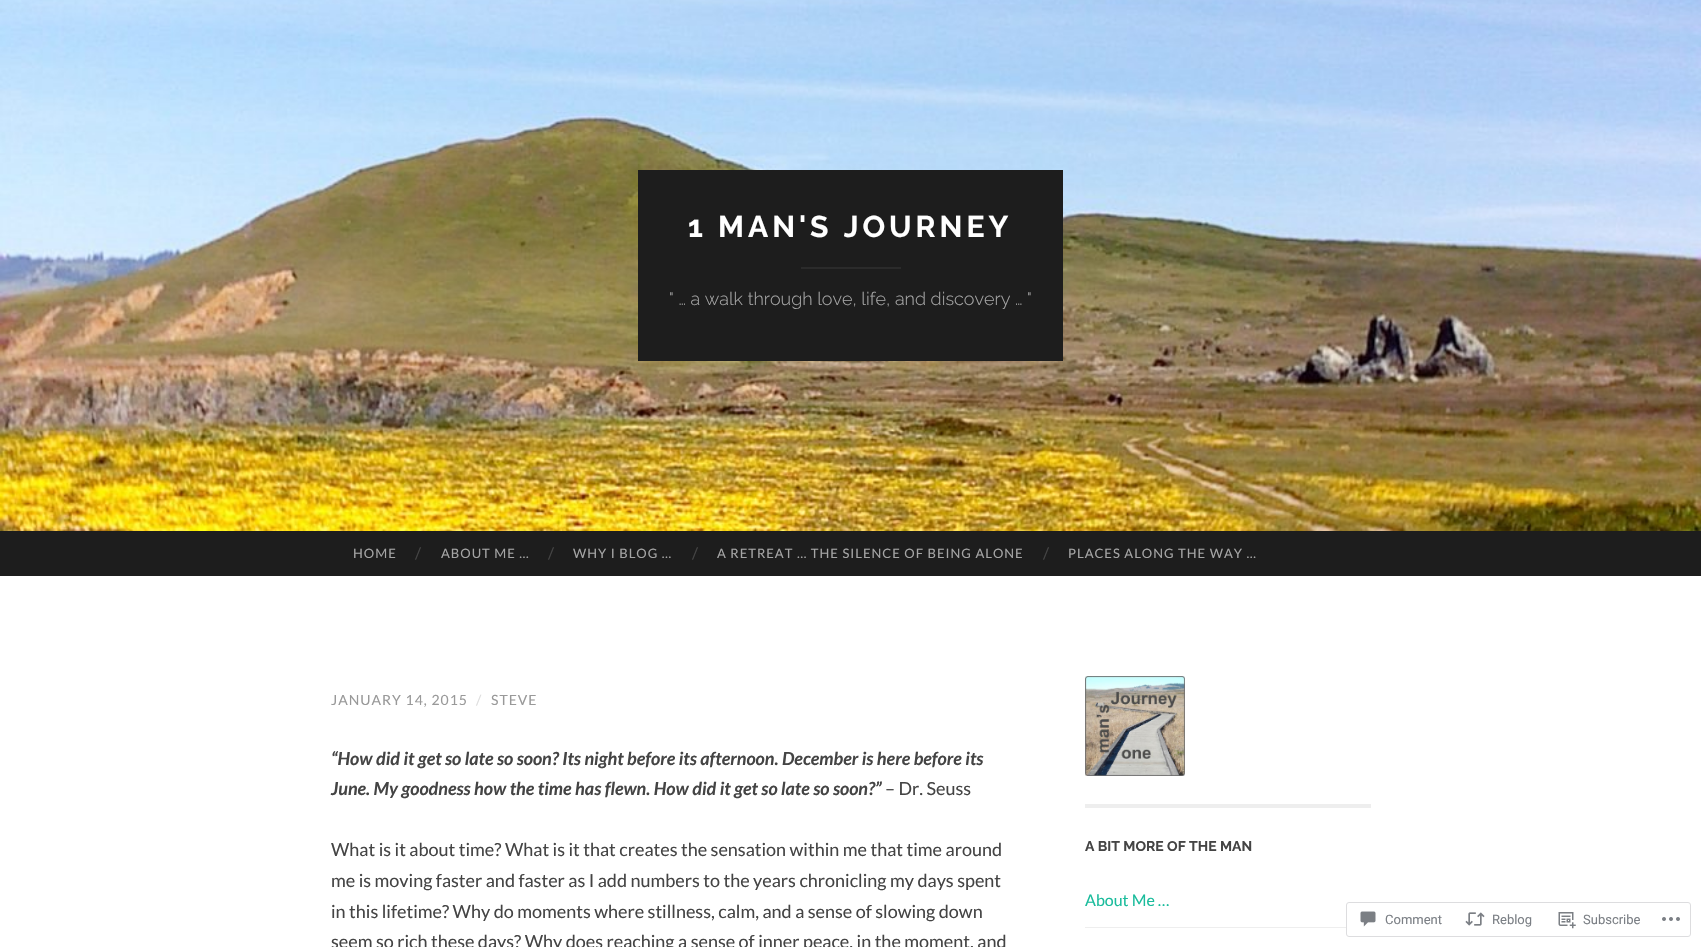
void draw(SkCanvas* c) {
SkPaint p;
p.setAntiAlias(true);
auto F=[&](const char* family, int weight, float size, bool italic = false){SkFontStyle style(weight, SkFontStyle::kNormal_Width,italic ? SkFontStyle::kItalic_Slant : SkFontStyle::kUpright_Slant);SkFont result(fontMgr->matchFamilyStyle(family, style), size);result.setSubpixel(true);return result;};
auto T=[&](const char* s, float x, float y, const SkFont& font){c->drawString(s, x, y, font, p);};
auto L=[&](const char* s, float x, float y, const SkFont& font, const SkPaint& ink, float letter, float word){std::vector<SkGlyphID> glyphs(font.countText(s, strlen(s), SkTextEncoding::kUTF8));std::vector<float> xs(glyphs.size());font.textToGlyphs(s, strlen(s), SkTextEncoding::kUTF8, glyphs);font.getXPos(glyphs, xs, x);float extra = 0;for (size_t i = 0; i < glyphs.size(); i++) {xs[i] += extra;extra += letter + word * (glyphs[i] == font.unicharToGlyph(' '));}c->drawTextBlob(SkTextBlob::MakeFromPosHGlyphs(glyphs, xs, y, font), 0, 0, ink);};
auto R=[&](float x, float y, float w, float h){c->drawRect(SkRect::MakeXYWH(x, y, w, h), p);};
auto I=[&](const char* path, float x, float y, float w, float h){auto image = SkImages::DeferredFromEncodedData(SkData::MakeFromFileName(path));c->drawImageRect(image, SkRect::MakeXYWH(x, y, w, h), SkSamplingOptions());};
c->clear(0xffffffff);
I("1.png",0,0,1701,531);
p.setColor(0xff1d1d1d);
R(638,170,425,191);
auto f1 = F("Raleway",700,30);
p.setColor(0xffffffff);
L("1 MAN'S JOURNEY",688,237,f1,p,4,0);
p.setColor(0xff2b2b2b);
R(801,267,100,2);
auto f2 = F("Raleway",300,18);
p.setColor(0xffa5a5a5);
T("\" … a walk through love, life, and discovery … \"",669,305,f2);
p.setColor(0xff1d1d1d);
R(0,531,1701,45);
auto f3 = F("Lato",400,13);
p.setColor(0xffa5a5a5);
L("HOME",353,558,f3,p,1,0);
auto f4 = F("Lato",400,16);
p.setColor(0xff444444);
T("/",415,559,f4);
p.setColor(0xffa5a5a5);
L("ABOUT ME …",441,558,f3,p,1,0);
p.setColor(0xff444444);
T("/",548,559,f4);
p.setColor(0xffa5a5a5);
L("WHY I BLOG …",573,558,f3,p,1,0);
p.setColor(0xff444444);
T("/",692,559,f4);
p.setColor(0xffa5a5a5);
L("A RETREAT … THE SILENCE OF BEING ALONE",717,558,f3,p,1,0);
p.setColor(0xff444444);
T("/",1043,559,f4);
p.setColor(0xffa5a5a5);
L("PLACES ALONG THE WAY …",1068,558,f3,p,1,0);
auto f5 = F("Lato",400,14);
p.setColor(0xff999999);
L("JANUARY 14, 2015",331,705,f5,p,1,0);
p.setColor(0xffdddddd);
L("/",476,705,f5,p,1,0);
p.setColor(0xff999999);
L("STEVE",491,705,f5,p,1,0);
auto f6 = F("Lato",700,18,true);
p.setColor(0xff444444);
T("“How did it get so late so soon? Its night before its afternoon. December is here before its",331,765,f6);
T("June. My goodness how the time has flewn. How did it get so late so soon?”",331,795,f6);
auto f7 = F("Lato",400,18);
T("– Dr. Seuss",885,795,f7);
T("What is it about time? What is it that creates the sensation within me that time around",331,856,f7);
T("me is moving faster and faster as I add numbers to the years chronicling my days spent",331,887,f7);
T("in this lifetime? Why do moments where stillness, calm, and a sense of slowing down",331,918,f7);
T("seem so rich these days? Why does reaching a sense of inner peace, in the moment, and",331,948,f7);
p.setColor(0xffeeeeee);
R(1085,804,286,4);
I("2.png",1085,676,100,100);
auto f8 = F("Raleway",700,14);
p.setColor(0xff444444);
T("A BIT MORE OF THE MAN",1085,851,f8);
p.setColor(0xff1abc9c);
T("About Me …",1085,906,f4);
p.setColor(0xffeeeeee);
R(1085,927,286,1);
p.setColor(0xfaffffff);
c->drawRoundRect(SkRect::MakeXYWH(1346.5,902.5,344,34),2.5,2.5,p);
p.setStroke(true);
p.setStrokeWidth(1);
p.setColor(0xffdddddf);
c->drawRoundRect(SkRect::MakeXYWH(1346.5,902.5,344,34),2.5,2.5,p);
I("3.png",1360,911,16,16);
auto f9 = F("Roboto",400,13);
p.setStroke(false);
p.setColor(0xff7b7f85);
T("Comment",1385,924,f9);
I("4.png",1465,912,20,14);
T("Reblog",1492,924,f9);
I("5.png",1558,912,18,17);
T("Subscribe",1583,924,f9);
I("6.png",1662,917,18,4);
}
